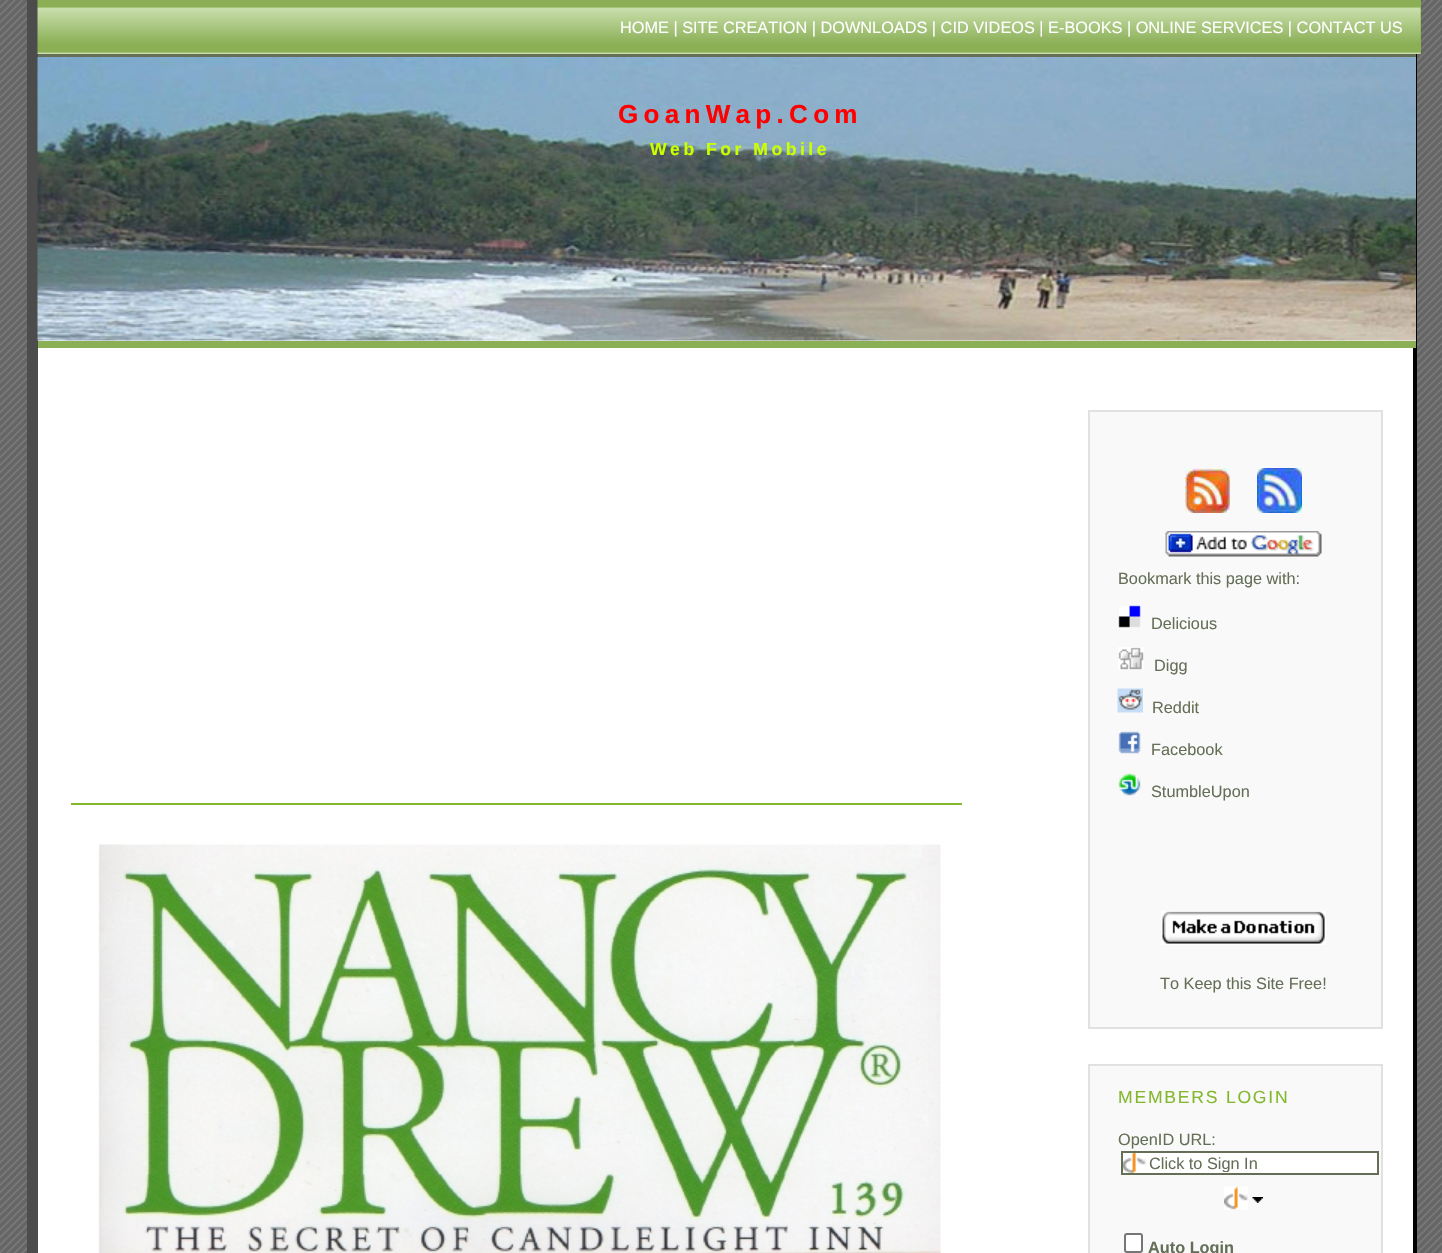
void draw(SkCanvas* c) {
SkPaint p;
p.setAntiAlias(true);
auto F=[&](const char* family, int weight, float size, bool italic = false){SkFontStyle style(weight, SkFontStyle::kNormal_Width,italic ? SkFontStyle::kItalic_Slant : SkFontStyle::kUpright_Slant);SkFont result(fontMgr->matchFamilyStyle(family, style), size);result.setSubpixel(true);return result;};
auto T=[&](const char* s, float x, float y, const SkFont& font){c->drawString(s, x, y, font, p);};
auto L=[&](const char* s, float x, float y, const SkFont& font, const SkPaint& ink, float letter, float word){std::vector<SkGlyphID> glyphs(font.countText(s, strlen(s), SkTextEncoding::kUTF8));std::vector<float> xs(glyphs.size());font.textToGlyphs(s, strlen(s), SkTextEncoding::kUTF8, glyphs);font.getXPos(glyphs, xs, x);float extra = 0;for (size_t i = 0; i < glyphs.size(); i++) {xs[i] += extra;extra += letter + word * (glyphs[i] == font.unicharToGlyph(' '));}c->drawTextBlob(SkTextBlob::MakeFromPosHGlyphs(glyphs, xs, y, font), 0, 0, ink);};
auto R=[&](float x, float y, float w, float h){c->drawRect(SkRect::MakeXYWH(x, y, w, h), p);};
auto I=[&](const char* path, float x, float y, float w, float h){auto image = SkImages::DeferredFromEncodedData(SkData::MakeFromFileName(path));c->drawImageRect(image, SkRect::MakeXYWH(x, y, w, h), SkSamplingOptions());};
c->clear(0xffffffff);
I("1.png",0,0,1442,1253);
p.setColor(0xffffffff);
R(38,348,1375,905);
p.setColor(0xff4c4c4c);
R(27,0,11,1253);
p.setColor(0xff000000);
R(1413,54,4,1199);
p.setColor(0xff83b82e);
R(1420,0,1,54);
I("2.png",37,0,1384,54);
auto f1 = F("Liberation Sans",400,16.3);
p.setColor(0xffffffff);
T("HOME | SITE CREATION | DOWNLOADS | CID VIDEOS | E-BOOKS | ONLINE SERVICES | CONTACT US",620,33,f1);
R(38,340,1378,1);
I("3.png",37,57,1379,284);
p.setColor(0xff656f57);
R(38,54,1378,3);
p.setColor(0xff8aaf55);
R(38,341,1378,7);
auto f2 = F("Liberation Sans",700,26.1);
p.setColor(0xffff0000);
L("GoanWap.Com",618,123,f2,p,5.25,0);
auto f3 = F("Liberation Sans",700,17.6);
p.setColor(0xffccff00);
L("Web For Mobile",650,155,f3,p,3.5,0);
p.setColor(0xff83b82e);
R(71,803,891,2);
I("4.png",98,844,843,409);
p.setColor(0xfff9f9f9);
c->drawRect(SkRect::MakeXYWH(1089,411,293,617),p);
p.setStroke(true);
p.setStrokeWidth(2);
p.setColor(0xffe1e1e1);
c->drawRect(SkRect::MakeXYWH(1089,411,293,617),p);
I("5.png",1185,468,45,45);
I("6.png",1257,468,45,45);
I("7.png",1165,531,157,26);
p.setStroke(false);
p.setColor(0xff656f57);
T("Bookmark this page with:",1118,584,f1);
I("8.png",1118,605,23,23);
T("Delicious",1151,629,f1);
I("9.png",1118,647,26,23);
T("Digg",1154,671,f1);
I("10.png",1117,688,26,25);
T("Reddit",1152,713,f1);
I("11.png",1118,731,23,23);
T("Facebook",1151,755,f1);
I("12.png",1118,773,23,23);
T("StumbleUpon",1151,797,f1);
p.setColor(0xffffffff);
R(1161,911,165,34);
I("13.png",1162,911,163,33);
p.setColor(0xff656f57);
T("To Keep this Site Free!",1160,989,f1);
p.setColor(0xfff9f9f9);
c->drawRect(SkRect::MakeXYWH(1089,1065,293,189),p);
p.setStroke(true);
p.setColor(0xffe1e1e1);
c->drawRect(SkRect::MakeXYWH(1089,1065,293,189),p);
auto f4 = F("Liberation Sans",400,17.6);
p.setStroke(false);
p.setColor(0xff83b82e);
L("MEMBERS LOGIN",1118,1103,f4,p,1.75,0);
p.setColor(0xff656f57);
T("OpenID URL:",1118,1145,f1);
p.setColor(0xffffffff);
R(1146,1153,231,20);
I("14.png",1122,1150,24,23);
p.setStroke(true);
p.setColor(0xff656f57);
c->drawRect(SkRect::MakeXYWH(1122,1152,256,22),p);
c->save();
c->clipRect(SkRect::MakeXYWH(1149,1154,225,18));
p.setStroke(false);
T("Click to Sign In",1149,1169,f1);
c->restore();
I("15.png",1224,1186,24,24);
I("16.png",1252,1197,11,6);
p.setColor(0xffffffff);
c->drawRoundRect(SkRect::MakeXYWH(1125,1234,17,18),2,2,p);
p.setStroke(true);
p.setColor(0xff767676);
c->drawRoundRect(SkRect::MakeXYWH(1125,1234,17,18),2,2,p);
auto f5 = F("Liberation Sans",700,16.3);
p.setStroke(false);
p.setColor(0xff656f57);
T("Auto Login",1148,1253,f5);
}
